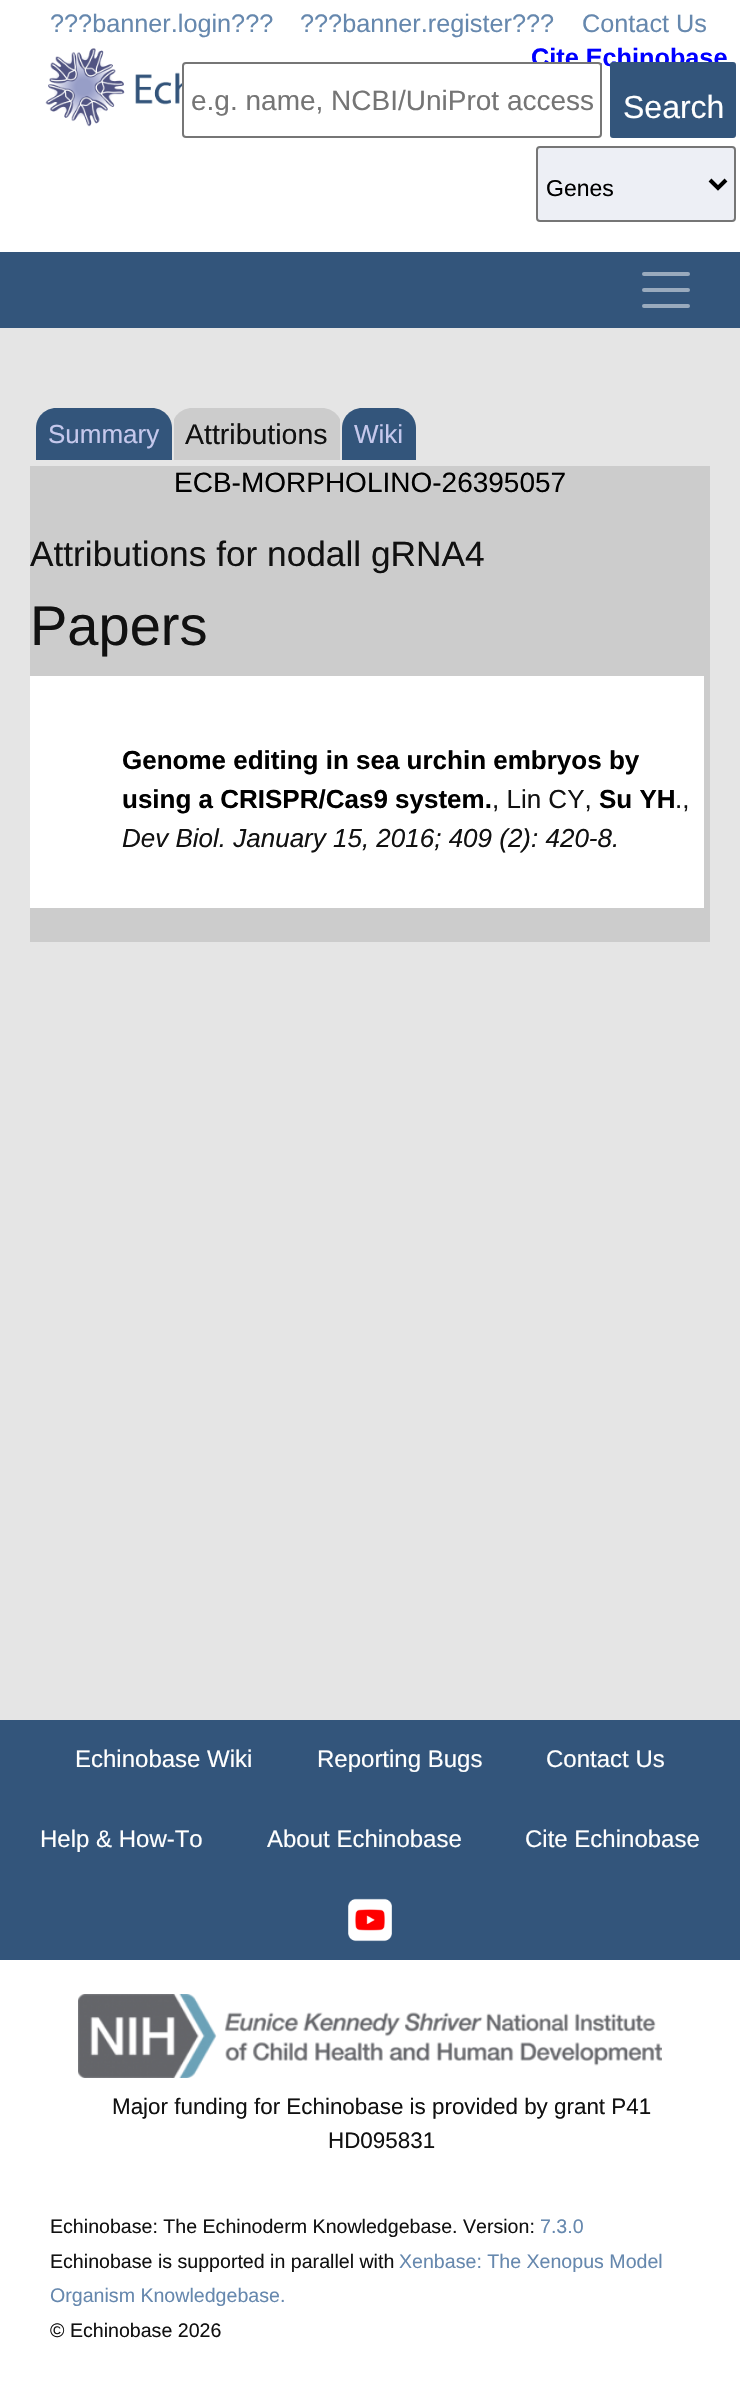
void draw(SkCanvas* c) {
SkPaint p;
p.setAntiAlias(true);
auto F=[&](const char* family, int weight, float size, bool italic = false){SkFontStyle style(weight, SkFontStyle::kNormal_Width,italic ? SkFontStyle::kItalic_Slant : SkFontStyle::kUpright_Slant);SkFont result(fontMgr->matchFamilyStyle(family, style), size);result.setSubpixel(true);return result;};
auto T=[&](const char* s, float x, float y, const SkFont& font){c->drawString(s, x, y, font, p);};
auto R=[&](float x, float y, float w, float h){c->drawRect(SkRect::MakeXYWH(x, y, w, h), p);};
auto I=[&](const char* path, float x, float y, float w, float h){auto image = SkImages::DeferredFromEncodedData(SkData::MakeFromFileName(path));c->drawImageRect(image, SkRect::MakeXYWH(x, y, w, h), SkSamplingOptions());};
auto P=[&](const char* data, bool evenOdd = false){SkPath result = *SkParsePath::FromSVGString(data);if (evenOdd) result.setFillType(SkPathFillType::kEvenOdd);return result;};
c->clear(0xffe5e5e5);
p.setColor(0xffffffff);
R(0,0,740,252);
auto f1 = F("Liberation Sans",400,25.25);
p.setColor(0xff6688ae);
T("?\077?banner.login?\077?",50,32,f1);
T("?\077?banner.register?\077?",300,32,f1);
T("Contact Us",582,32,f1);
auto f2 = F("Liberation Sans",700,25.25);
p.setColor(0xff0000ff);
T("Cite Echinobase",531,66,f2);
I("1.png",45,48,137,79);
p.setColor(0xffffffff);
c->drawRoundRect(SkRect::MakeXYWH(183,63,418,74),3,3,p);
p.setStroke(true);
p.setStrokeWidth(2);
p.setColor(0xff767676);
c->drawRoundRect(SkRect::MakeXYWH(183,63,418,74),3,3,p);
auto f3 = F("Liberation Sans",400,28);
p.setStroke(false);
p.setColor(0xff757575);
T("e.g. name, NCBI/UniProt access",191,110,f3);
p.setColor(0xff33557b);
c->drawRoundRect(SkRect::MakeXYWH(611,63,124,74),2,2,p);
p.setStroke(true);
c->drawRoundRect(SkRect::MakeXYWH(611,63,124,74),2,2,p);
auto f4 = F("Liberation Sans",400,32);
p.setStroke(false);
p.setColor(0xffffffff);
T("Search",623,118,f4);
p.setColor(0xffedeff5);
c->drawRoundRect(SkRect::MakeXYWH(537,147,198,74),3,3,p);
p.setStroke(true);
p.setColor(0xff767676);
c->drawRoundRect(SkRect::MakeXYWH(537,147,198,74),3,3,p);
p.setStrokeWidth(4);
p.setColor(0xff000000);
c->drawPath(P("M710 180l8 8l8-8"),p);
auto f5 = F("Liberation Sans",400,23);
p.setStroke(false);
T("Genes",546,196,f5);
p.setColor(0xff33557b);
R(0,252,740,76);
p.setStroke(true);
p.setStrokeCap(SkPaint::kRound_Cap);
p.setColor(0xff99aabd);
c->drawPath(P("M644 274h44m-44 16h44m-44 16h44"),p);
p.setStroke(false);
p.setColor(0xff33557b);
c->drawPath(P("M56 408h96c11 0 20 9 20 20v32h-136v-32c0-11 9-20 20-20z"),p);
p.setColor(0xffcccccc);
c->drawPath(P("M192 408h130c11 0 20 9 20 20v32h-170v-32c0-11 9-20 20-20z"),p);
p.setColor(0xffe5e5e5);
R(172,419,2,41);
auto f6 = F("Liberation Sans",400,26);
p.setColor(0xffc5c8ec);
T("Summary",48,443,f6);
p.setColor(0xffe5e5e5);
R(340,419,2,41);
auto f7 = F("Liberation Sans",400,28.5);
p.setColor(0xff111111);
T("Attributions",185,444,f7);
p.setColor(0xff33557b);
c->drawPath(P("M362 408h34c11 0 20 9 20 20v32h-74v-32c0-11 9-20 20-20z"),p);
p.setColor(0xffc5c8ec);
T("Wiki",354,443,f6);
p.setColor(0xffcccccc);
R(30,466,680,476);
p.setColor(0xff000000);
T("ECB-MORPHOLINO-26395057",174,492,f3);
auto f8 = F("Liberation Sans",400,35.25);
p.setColor(0xff111111);
T("Attributions for nodall gRNA4",30,566,f8);
auto f9 = F("Liberation Sans",400,56);
T("Papers",30,645,f9);
p.setColor(0xffffffff);
R(30,676,674,232);
auto f10 = F("Liberation Sans",700,26);
p.setColor(0xff000000);
T("Genome editing in sea urchin embryos by",122,769,f10);
T("using a CRISPR/Cas9 system.",122,808,f10);
p.setColor(0xff111111);
T(", Lin CY,",492,808,f6);
p.setColor(0xff000000);
T("Su YH",599,808,f10);
p.setColor(0xff111111);
T(".,",675,808,f6);
auto f11 = F("Liberation Sans",400,26,true);
T("Dev Biol. January 15, 2016; 409 (2): 420-8.",122,847,f11);
p.setColor(0xffffffff);
R(0,1960,740,438);
p.setColor(0xff33557b);
R(0,1720,740,240);
auto f12 = F("Liberation Sans",400,24);
p.setColor(0xffffffff);
T("Echinobase Wiki",75,1767,f12);
T("Reporting Bugs",317,1767,f12);
T("Contact Us",546,1767,f12);
T("Help & How-To",40,1847,f12);
T("About Echinobase",267,1847,f12);
T("Cite Echinobase",525,1847,f12);
I("2.png",348,1898,44,44);
I("3.png",78,1994,584,84);
auto f13 = F("Liberation Sans",400,22.4);
p.setColor(0xff111111);
T("Major funding for Echinobase is provided by grant P41",112,2114,f13);
T("HD095831",328,2148,f13);
auto f14 = F("Liberation Sans",400,19.6);
T("Echinobase: The Echinoderm Knowledgebase. Version:",50,2233,f14);
p.setColor(0xff6688ae);
T("7.3.0",540,2233,f14);
p.setColor(0xff111111);
T("Echinobase is supported in parallel with",50,2268,f14);
p.setColor(0xff6688ae);
T("Xenbase: The Xenopus Model",399,2268,f14);
T("Organism Knowledgebase.",50,2302,f14);
p.setColor(0xff111111);
T("© Echinobase 2026",50,2337,f14);
}
